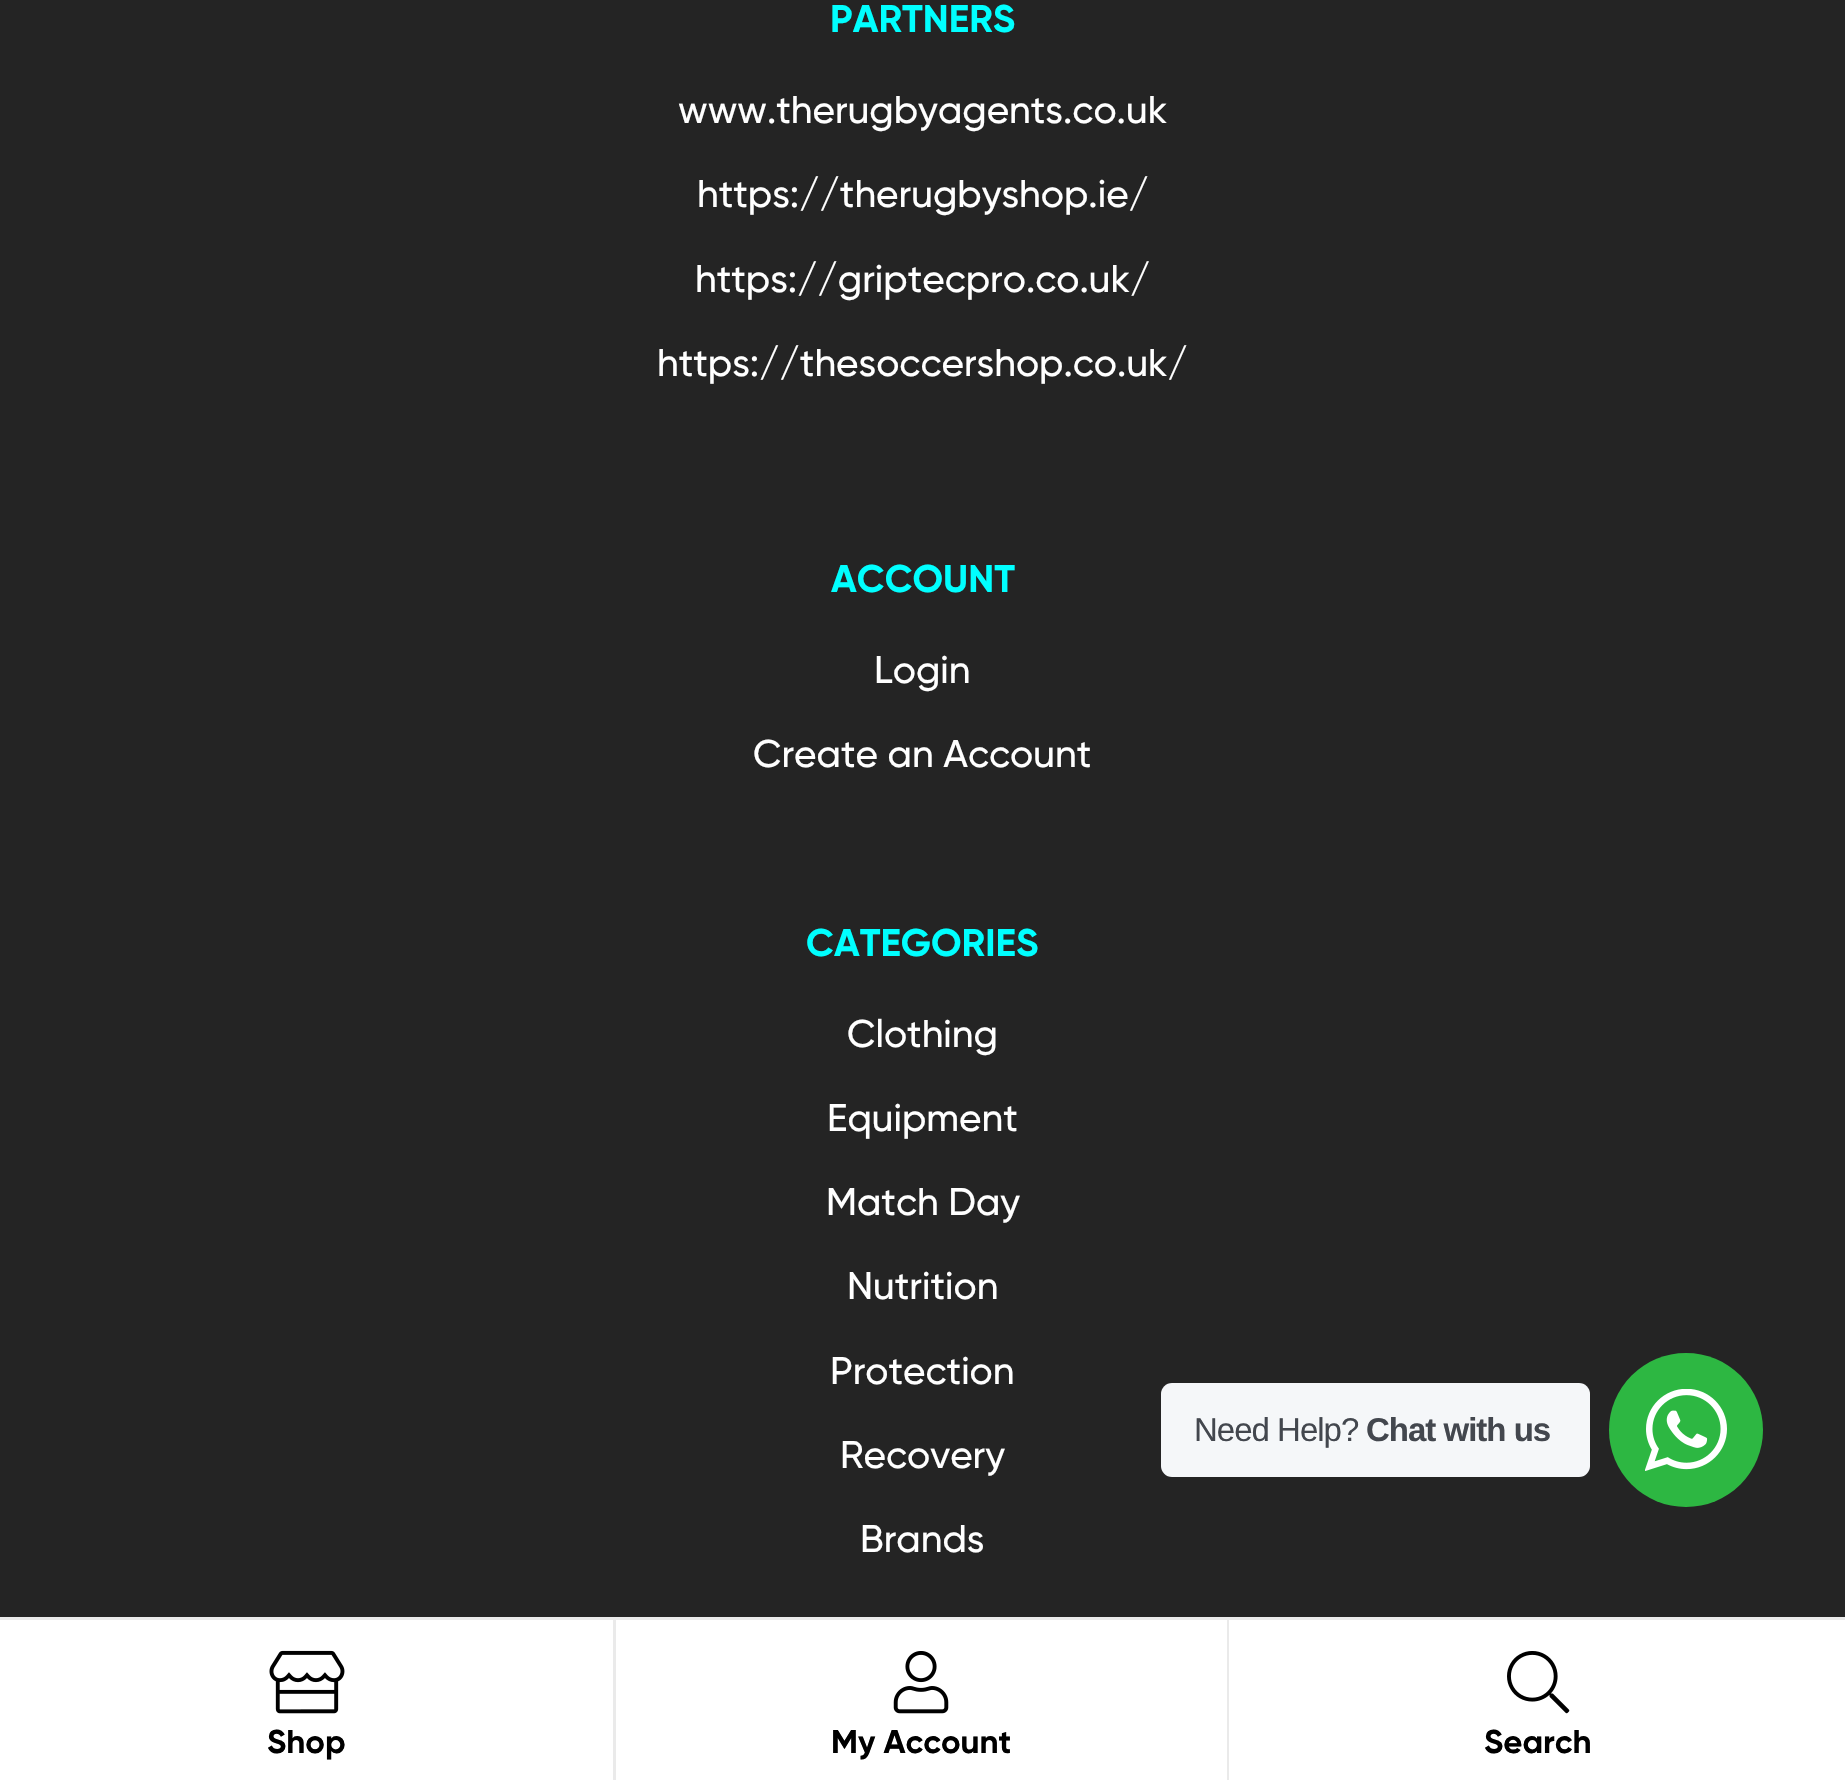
void draw(SkCanvas* c) {
SkPaint p;
p.setAntiAlias(true);
auto F=[&](const char* family, int weight, float size, bool italic = false){SkFontStyle style(weight, SkFontStyle::kNormal_Width,italic ? SkFontStyle::kItalic_Slant : SkFontStyle::kUpright_Slant);SkFont result(fontMgr->matchFamilyStyle(family, style), size);result.setSubpixel(true);return result;};
auto T=[&](const char* s, float x, float y, const SkFont& font){c->drawString(s, x, y, font, p);};
auto L=[&](const char* s, float x, float y, const SkFont& font, const SkPaint& ink, float letter, float word){std::vector<SkGlyphID> glyphs(font.countText(s, strlen(s), SkTextEncoding::kUTF8));std::vector<float> xs(glyphs.size());font.textToGlyphs(s, strlen(s), SkTextEncoding::kUTF8, glyphs);font.getXPos(glyphs, xs, x);float extra = 0;for (size_t i = 0; i < glyphs.size(); i++) {xs[i] += extra;extra += letter + word * (glyphs[i] == font.unicharToGlyph(' '));}c->drawTextBlob(SkTextBlob::MakeFromPosHGlyphs(glyphs, xs, y, font), 0, 0, ink);};
auto R=[&](float x, float y, float w, float h){c->drawRect(SkRect::MakeXYWH(x, y, w, h), p);};
auto Q=[&](float x, float y, float w, float h, float radius){c->drawRoundRect(SkRect::MakeXYWH(x, y, w, h), radius, radius, p);};
auto I=[&](const char* path, float x, float y, float w, float h){auto image = SkImages::DeferredFromEncodedData(SkData::MakeFromFileName(path));c->drawImageRect(image, SkRect::MakeXYWH(x, y, w, h), SkSamplingOptions());};
c->clear(0xff242424);
auto f1 = F("Gilroy",700,38.5);
p.setColor(0xff00ffff);
T("PARTNERS",830,32,f1);
auto f2 = F("Gilroy",500,38.5);
p.setColor(0xffffffff);
T("www.therugbyagents.co.uk",678,123,f2);
T("https://therugbyshop.ie/",697,207,f2);
T("https://griptecpro.co.uk/",695,292,f2);
T("https://thesoccershop.co.uk/",657,376,f2);
p.setColor(0xff00ffff);
T("ACCOUNT",831,592,f1);
p.setColor(0xffffffff);
T("Login",874,683,f2);
T("Create an Account",753,767,f2);
p.setColor(0xff00ffff);
T("CATEGORIES",806,956,f1);
p.setColor(0xffffffff);
T("Clothing",847,1047,f2);
T("Equipment",827,1131,f2);
T("Match Day",826,1215,f2);
T("Nutrition",847,1299,f2);
T("Protection",830,1384,f2);
T("Recovery",840,1468,f2);
T("Brands",860,1552,f2);
p.setColor(0xffeaeaea);
R(0,1617,1845,3);
p.setColor(0xffffffff);
R(0,1620,613,160);
p.setColor(0xffeaeaea);
R(613,1620,3,160);
I("1.png",269,1650,76,64);
auto f3 = F("Gilroy",700,33);
p.setColor(0xff000000);
T("Shop",267,1753,f3);
p.setColor(0xffffffff);
R(616,1620,611,160);
p.setColor(0xffeaeaea);
R(1227,1620,2,160);
I("2.png",893,1651,56,63);
p.setColor(0xff000000);
T("My Account",831,1753,f3);
p.setColor(0xffffffff);
R(1229,1620,616,160);
I("3.png",1507,1651,63,63);
p.setColor(0xff000000);
T("Search",1484,1753,f3);
p.setColor(0xfff5f7f9);
Q(1161,1383,429,94,11);
auto f4 = F("Liberation Sans",400,33);
p.setColor(0xff43474e);
L("Need Help?",1194,1441,f4,p,-1,0);
auto f5 = F("Liberation Sans",700,33);
L("Chat with us",1366,1441,f5,p,-1,0);
p.setColor(0xff2db742);
c->drawCircle(1686,1430,77,p);
I("4.png",1645,1389,82,82);
}
